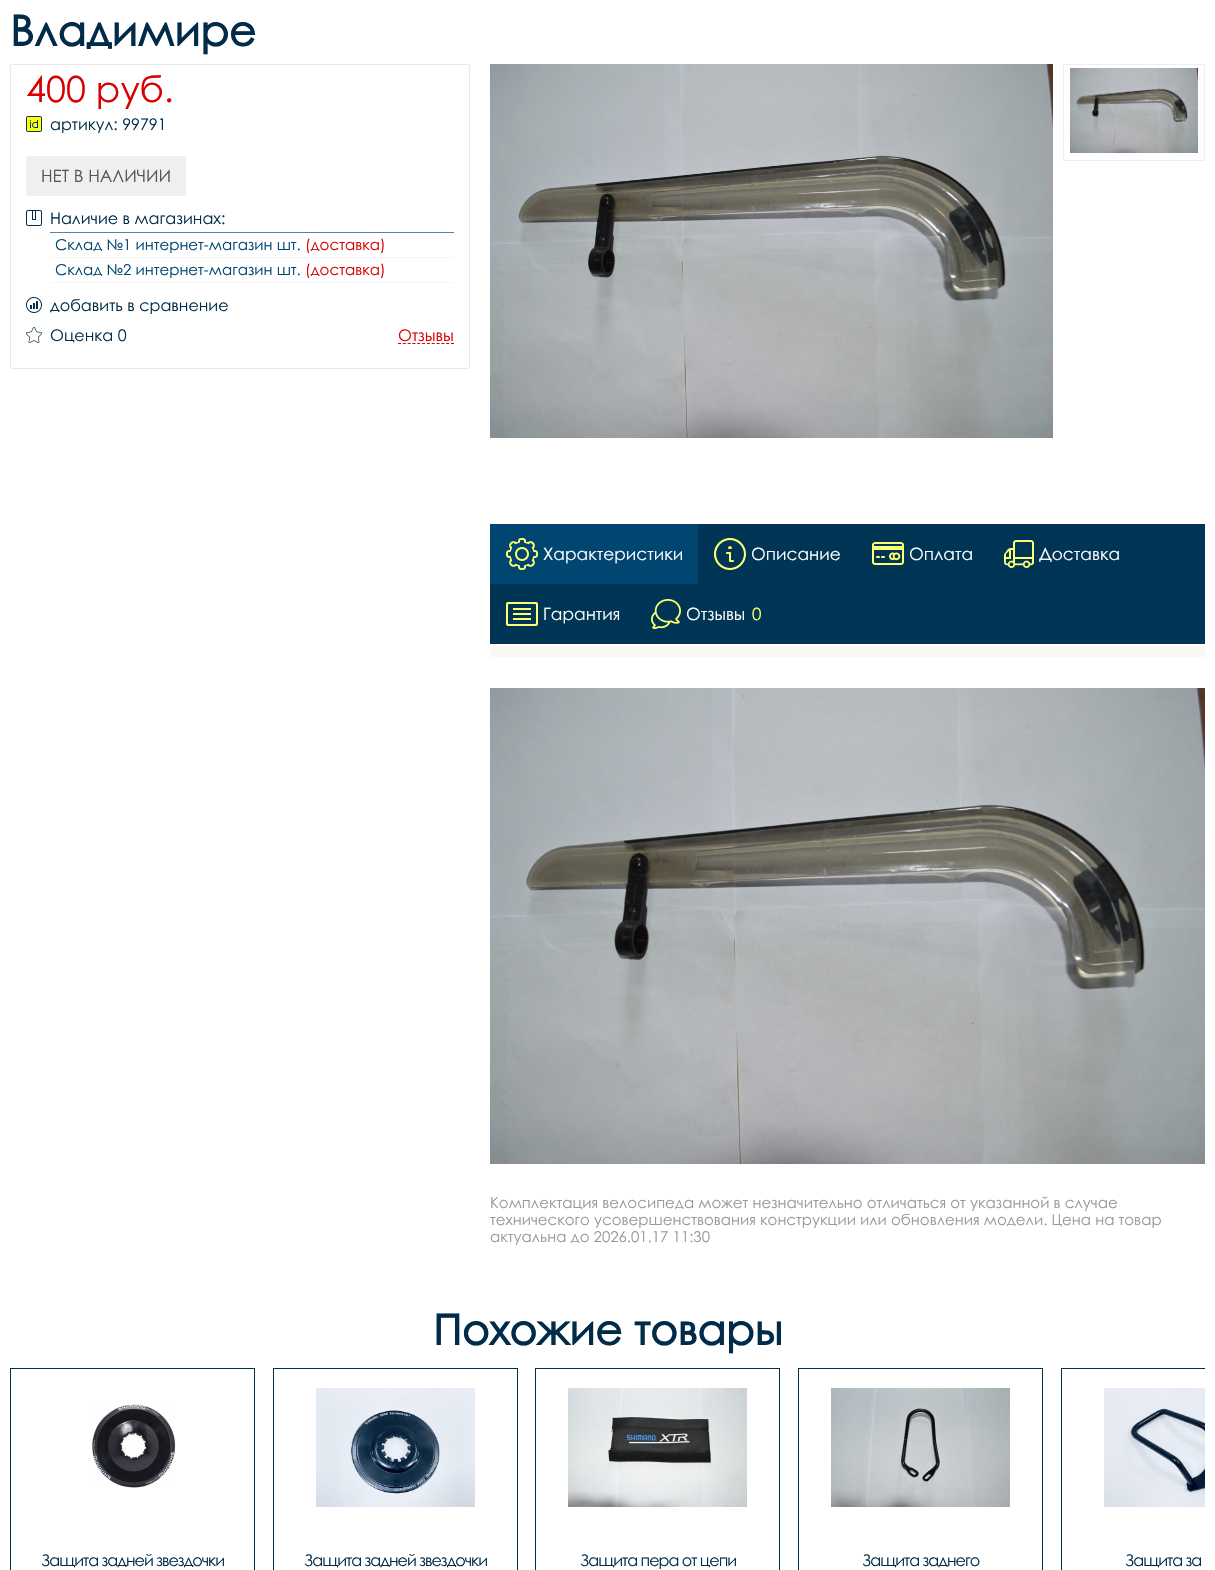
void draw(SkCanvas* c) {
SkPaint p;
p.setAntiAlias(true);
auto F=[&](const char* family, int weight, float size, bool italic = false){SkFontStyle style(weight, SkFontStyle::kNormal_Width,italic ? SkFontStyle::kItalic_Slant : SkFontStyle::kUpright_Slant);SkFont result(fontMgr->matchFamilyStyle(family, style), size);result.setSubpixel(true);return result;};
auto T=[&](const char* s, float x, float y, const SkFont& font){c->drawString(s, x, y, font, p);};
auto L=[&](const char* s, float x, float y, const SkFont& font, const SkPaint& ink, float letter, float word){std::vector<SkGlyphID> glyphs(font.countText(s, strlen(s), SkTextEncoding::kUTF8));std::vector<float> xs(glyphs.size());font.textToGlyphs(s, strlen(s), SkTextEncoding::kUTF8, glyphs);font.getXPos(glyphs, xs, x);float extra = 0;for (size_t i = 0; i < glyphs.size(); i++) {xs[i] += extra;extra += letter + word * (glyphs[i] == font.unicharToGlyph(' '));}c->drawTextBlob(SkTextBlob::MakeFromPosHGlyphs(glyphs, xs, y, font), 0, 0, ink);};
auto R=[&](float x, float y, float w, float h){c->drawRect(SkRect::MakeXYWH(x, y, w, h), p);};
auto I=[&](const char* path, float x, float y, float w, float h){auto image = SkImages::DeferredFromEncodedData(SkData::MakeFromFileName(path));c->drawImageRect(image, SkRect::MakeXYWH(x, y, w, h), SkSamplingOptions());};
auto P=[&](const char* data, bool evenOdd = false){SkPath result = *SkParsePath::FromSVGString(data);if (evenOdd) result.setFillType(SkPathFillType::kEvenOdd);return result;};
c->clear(0xffffffff);
auto f1 = F("Century Gothic",700,42);
p.setColor(0xff002c4a);
T("Владимире",10,46,f1);
p.setStroke(true);
p.setStrokeWidth(1);
p.setColor(0xffe9e9e9);
c->drawRoundRect(SkRect::MakeXYWH(10.5,64.5,459,304),1.5,1.5,p);
auto f2 = F("Century Gothic",400,36);
p.setStroke(false);
p.setColor(0xffd80000);
T("400 руб.",26,102,f2);
I("1.png",26,116,16,16);
auto f3 = F("Century Gothic",400,16);
p.setColor(0xff002c4a);
T("артикул: 99791",50,130,f3);
p.setColor(0xffefefef);
R(26,156,160,40);
auto f4 = F("Century Gothic",400,17);
p.setColor(0xff555555);
T("НЕТ В НАЛИЧИИ",41,182,f4);
I("2.png",26,210,16,16);
p.setColor(0xff5584a0);
R(50,232,404,1);
p.setColor(0xff002c4a);
T("Наличие в магазинах:",50,224,f3);
p.setColor(0xfff5f5f5);
R(50,257,404,1);
auto f5 = F("Century Gothic",400,15);
p.setColor(0xff004670);
T("Склад №1 интернет-магазин шт.",55,250,f5);
p.setColor(0xffd80000);
T("(доставка)",305,250,f5);
p.setColor(0xfff5f5f5);
R(50,282,404,1);
p.setColor(0xff004670);
T("Склад №2 интернет-магазин шт.",55,275,f5);
p.setColor(0xffd80000);
T("(доставка)",305,275,f5);
I("3.png",26,297,16,16);
p.setColor(0xff002c4a);
T("добавить в сравнение",50,311,f3);
I("4.png",26,327,16,16);
T("Оценка 0",50,341,f3);
p.setStroke(true);
p.setColor(0xffd90000);
p.setPathEffect(SkDashPathEffect::Make({{3,1.82f}}, 0));
c->drawPath(P("M398 343.5h56"),p);
p.setPathEffect(nullptr);
p.setStroke(false);
p.setColor(0xffd80000);
T("Отзывы",398,341,f3);
I("5.png",490,64,563,374);
p.setStroke(true);
p.setColor(0xffeeeeee);
c->drawRect(SkRect::MakeXYWH(1063.5,64.5,141,96),p);
I("6.png",1070,68,128,85);
p.setStroke(false);
p.setColor(0xff003555);
R(490,524,715,120);
p.setColor(0xff004670);
R(490,524,208,60);
I("7.png",506,538,32,32);
p.setColor(0xffffffff);
T("Характеристики",543,560,f4);
I("8.png",714,538,32,32);
T("Описание",751,560,f4);
I("9.png",872,542,32,23);
T("Оплата",909,560,f4);
I("10.png",1004,540,30,28);
T("Доставка",1039,560,f4);
I("11.png",506,602,32,24);
T("Гарантия",543,620,f4);
I("12.png",651,599,30,30);
T("Отзывы",686,620,f4);
p.setColor(0xffffff72);
T("0",752,620,f4);
p.setColor(0xfff9f9f3);
R(490,646,715,11);
I("13.png",490,688,715,476);
p.setColor(0xff999999);
T("Комплектация велосипеда может незначительно отличаться от указанной в случае",490,1208,f5);
T("технического усовершенствования конструкции или обновления модели. Цена на товар",490,1225,f5);
T("актуальна до 2026.01.17 11:30",490,1242,f5);
p.setColor(0xff002c4a);
T("Похожие товары",433,1345,f1);
p.setStroke(true);
p.setColor(0xff002f4a);
c->drawRect(SkRect::MakeXYWH(10.5,1368.5,244,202),p);
I("14.png",92,1404,84,84);
p.setStroke(false);
p.setColor(0xff002c4a);
L("Защита задней звездочки",41,1566,f3,p,-1,0);
p.setStroke(true);
p.setColor(0xff002f4a);
c->drawRect(SkRect::MakeXYWH(273.5,1368.5,244,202),p);
I("15.png",316,1388,159,119);
p.setStroke(false);
p.setColor(0xff002c4a);
L("Защита задней звездочки",304,1566,f3,p,-1,0);
p.setStroke(true);
p.setColor(0xff002f4a);
c->drawRect(SkRect::MakeXYWH(535.5,1368.5,244,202),p);
I("16.png",568,1388,179,119);
p.setStroke(false);
p.setColor(0xff002c4a);
L("Защита пера от цепи",580,1566,f3,p,-1,0);
p.setStroke(true);
p.setColor(0xff002f4a);
c->drawRect(SkRect::MakeXYWH(798.5,1368.5,244,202),p);
I("17.png",831,1388,179,119);
p.setStroke(false);
p.setColor(0xff002c4a);
L("Защита заднего",862,1566,f3,p,-1,0);
c->save();
c->clipRect(SkRect::MakeXYWH(10,1368,1195,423));
p.setStroke(true);
p.setColor(0xff002f4a);
c->drawRect(SkRect::MakeXYWH(1061.5,1368.5,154,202),p);
c->restore();
I("18.png",1104,1388,101,119);
p.setStroke(false);
p.setColor(0xff002c4a);
L("Защита за",1125,1566,f3,p,-1,0);
}
